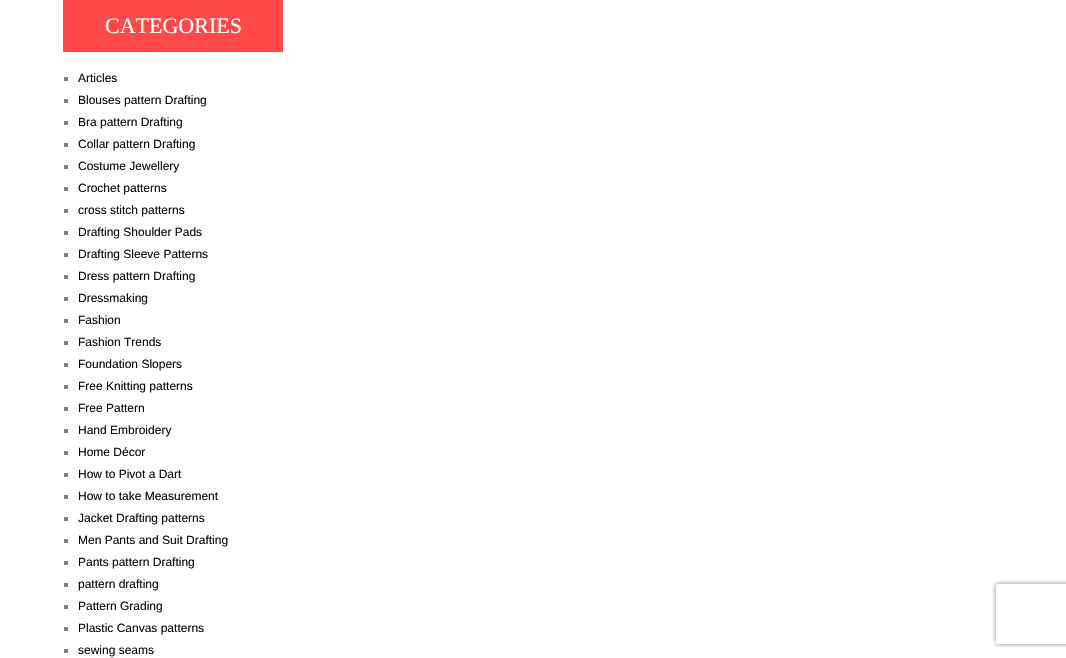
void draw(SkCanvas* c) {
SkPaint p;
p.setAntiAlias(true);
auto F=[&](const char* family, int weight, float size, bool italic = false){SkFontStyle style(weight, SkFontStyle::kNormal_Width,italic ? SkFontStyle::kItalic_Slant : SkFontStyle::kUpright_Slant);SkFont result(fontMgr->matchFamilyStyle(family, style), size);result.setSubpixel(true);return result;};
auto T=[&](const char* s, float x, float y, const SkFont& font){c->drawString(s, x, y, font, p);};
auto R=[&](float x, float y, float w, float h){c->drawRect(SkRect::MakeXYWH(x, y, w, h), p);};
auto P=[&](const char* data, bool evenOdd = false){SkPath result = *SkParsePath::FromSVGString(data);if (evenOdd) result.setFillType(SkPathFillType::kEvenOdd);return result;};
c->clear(0xffffffff);
p.setColor(0xffff4949);
R(63,0,220,52);
auto f1 = F("Liberation Serif",400,22);
p.setColor(0xffffffff);
T("CATEGORIES",105,33,f1);
p.setColor(0xff818181);
R(64,77,4,4);
auto f2 = F("Liberation Sans",400,12);
p.setColor(0xff090909);
T("Articles",78,82,f2);
p.setColor(0xff818181);
R(64,99,4,4);
p.setColor(0xff090909);
T("Blouses pattern Drafting",78,104,f2);
p.setColor(0xff818181);
R(64,121,4,4);
p.setColor(0xff090909);
T("Bra pattern Drafting",78,126,f2);
p.setColor(0xff818181);
R(64,143,4,4);
p.setColor(0xff090909);
T("Collar pattern Drafting",78,148,f2);
p.setColor(0xff818181);
R(64,165,4,4);
p.setColor(0xff090909);
T("Costume Jewellery",78,170,f2);
p.setColor(0xff818181);
R(64,187,4,4);
p.setColor(0xff090909);
T("Crochet patterns",78,192,f2);
p.setColor(0xff818181);
R(64,209,4,4);
p.setColor(0xff090909);
T("cross stitch patterns",78,214,f2);
p.setColor(0xff818181);
R(64,231,4,4);
p.setColor(0xff090909);
T("Drafting Shoulder Pads",78,236,f2);
p.setColor(0xff818181);
R(64,253,4,4);
p.setColor(0xff090909);
T("Drafting Sleeve Patterns",78,258,f2);
p.setColor(0xff818181);
R(64,275,4,4);
p.setColor(0xff090909);
T("Dress pattern Drafting",78,280,f2);
p.setColor(0xff818181);
R(64,297,4,4);
p.setColor(0xff090909);
T("Dressmaking",78,302,f2);
p.setColor(0xff818181);
R(64,319,4,4);
p.setColor(0xff090909);
T("Fashion",78,324,f2);
p.setColor(0xff818181);
R(64,341,4,4);
p.setColor(0xff090909);
T("Fashion Trends",78,346,f2);
p.setColor(0xff818181);
R(64,363,4,4);
p.setColor(0xff090909);
T("Foundation Slopers",78,368,f2);
p.setColor(0xff818181);
R(64,385,4,4);
p.setColor(0xff090909);
T("Free Knitting patterns",78,390,f2);
p.setColor(0xff818181);
R(64,407,4,4);
p.setColor(0xff090909);
T("Free Pattern",78,412,f2);
p.setColor(0xff818181);
R(64,429,4,4);
p.setColor(0xff090909);
T("Hand Embroidery",78,434,f2);
p.setColor(0xff818181);
R(64,451,4,4);
p.setColor(0xff090909);
T("Home Décor",78,456,f2);
p.setColor(0xff818181);
R(64,473,4,4);
p.setColor(0xff090909);
T("How to Pivot a Dart",78,478,f2);
p.setColor(0xff818181);
R(64,495,4,4);
p.setColor(0xff090909);
T("How to take Measurement",78,500,f2);
p.setColor(0xff818181);
R(64,517,4,4);
p.setColor(0xff090909);
T("Jacket Drafting patterns",78,522,f2);
p.setColor(0xff818181);
R(64,539,4,4);
p.setColor(0xff090909);
T("Men Pants and Suit Drafting",78,544,f2);
p.setColor(0xff818181);
R(64,561,4,4);
p.setColor(0xff090909);
T("Pants pattern Drafting",78,566,f2);
p.setColor(0xff818181);
R(64,583,4,4);
p.setColor(0xff090909);
T("pattern drafting",78,588,f2);
p.setColor(0xff818181);
R(64,605,4,4);
p.setColor(0xff090909);
T("Pattern Grading",78,610,f2);
p.setColor(0xff818181);
R(64,627,4,4);
p.setColor(0xff090909);
T("Plastic Canvas patterns",78,632,f2);
p.setColor(0xff818181);
R(64,649,4,4);
p.setColor(0xff090909);
T("sewing seams",78,654,f2);
c->save();
c->clipPath(P("M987 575h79v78h-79zm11 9h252c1 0 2 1 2 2v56c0 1-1 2-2 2h-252c-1 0-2-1-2-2v-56c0-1 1-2 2-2z",true),true);
p.setColor(0xff808080);
p.setMaskFilter(SkMaskFilter::MakeBlur(kNormal_SkBlurStyle, 2.5));
c->drawRoundRect(SkRect::MakeXYWH(996,584,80,60),2,2,p);
p.setMaskFilter(nullptr);
c->restore();
}
